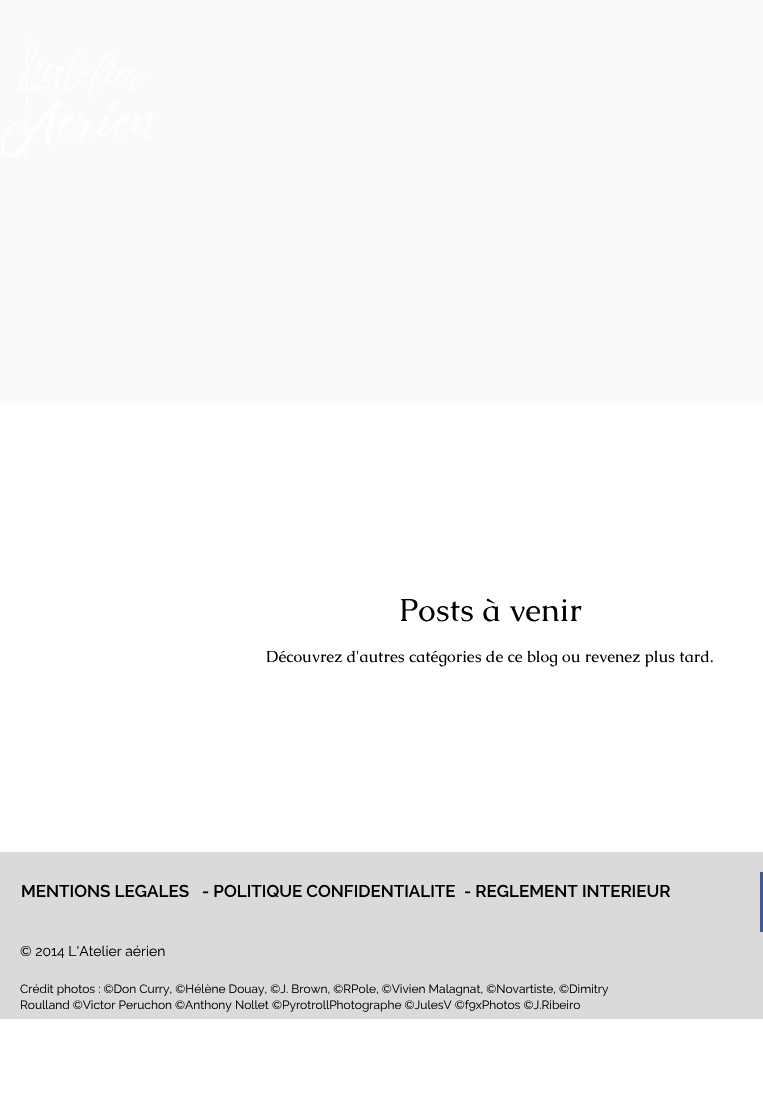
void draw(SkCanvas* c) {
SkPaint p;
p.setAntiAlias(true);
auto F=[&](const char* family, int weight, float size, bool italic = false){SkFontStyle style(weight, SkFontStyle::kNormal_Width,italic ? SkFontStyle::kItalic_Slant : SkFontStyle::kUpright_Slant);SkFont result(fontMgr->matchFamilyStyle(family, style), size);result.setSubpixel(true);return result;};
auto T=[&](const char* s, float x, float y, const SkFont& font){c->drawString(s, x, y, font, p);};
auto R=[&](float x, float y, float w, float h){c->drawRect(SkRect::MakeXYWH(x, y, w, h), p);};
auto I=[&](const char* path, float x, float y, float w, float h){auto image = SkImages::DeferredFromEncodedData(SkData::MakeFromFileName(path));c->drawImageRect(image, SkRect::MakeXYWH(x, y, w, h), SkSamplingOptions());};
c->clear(0xffffffff);
p.setColor(0xfffafafa);
R(0,0,763,401);
I("1.png",1,37,152,121);
auto f1 = F("Caudex",400,32);
p.setColor(0xff000000);
T("Posts à venir",399,621,f1);
auto f2 = F("Caudex",400,16);
T("Découvrez d'autres catégories de ce blog ou revenez plus tard.",266,662,f2);
p.setColor(0xffdadada);
R(0,852,763,167);
auto f3 = F("Raleway",600,17);
p.setColor(0xff000000);
T("MENTIONS LEGALES",21,897,f3);
T("- POLITIQUE CONFIDENTIALITE",202,897,f3);
T("- REGLEMENT INTERIEUR",464,897,f3);
p.setColor(0xff3d5a98);
R(760,872,3,60);
auto f4 = F("Raleway",400,14);
p.setColor(0xff000000);
T("© 2014 L'Atelier aérien",20,956,f4);
auto f5 = F("Raleway",400,12);
T("Crédit photos : ©Don Curry, ©Hélène Douay, ©J. Brown, ©RPole, ©Vivien Malagnat, ©Novartiste, ©Dimitry",20,993,f5);
T("Roulland ©Victor Peruchon ©Anthony Nollet ©PyrotrollPhotographe ©JulesV ©f9xPhotos ©J.Ribeiro",20,1009,f5);
}
